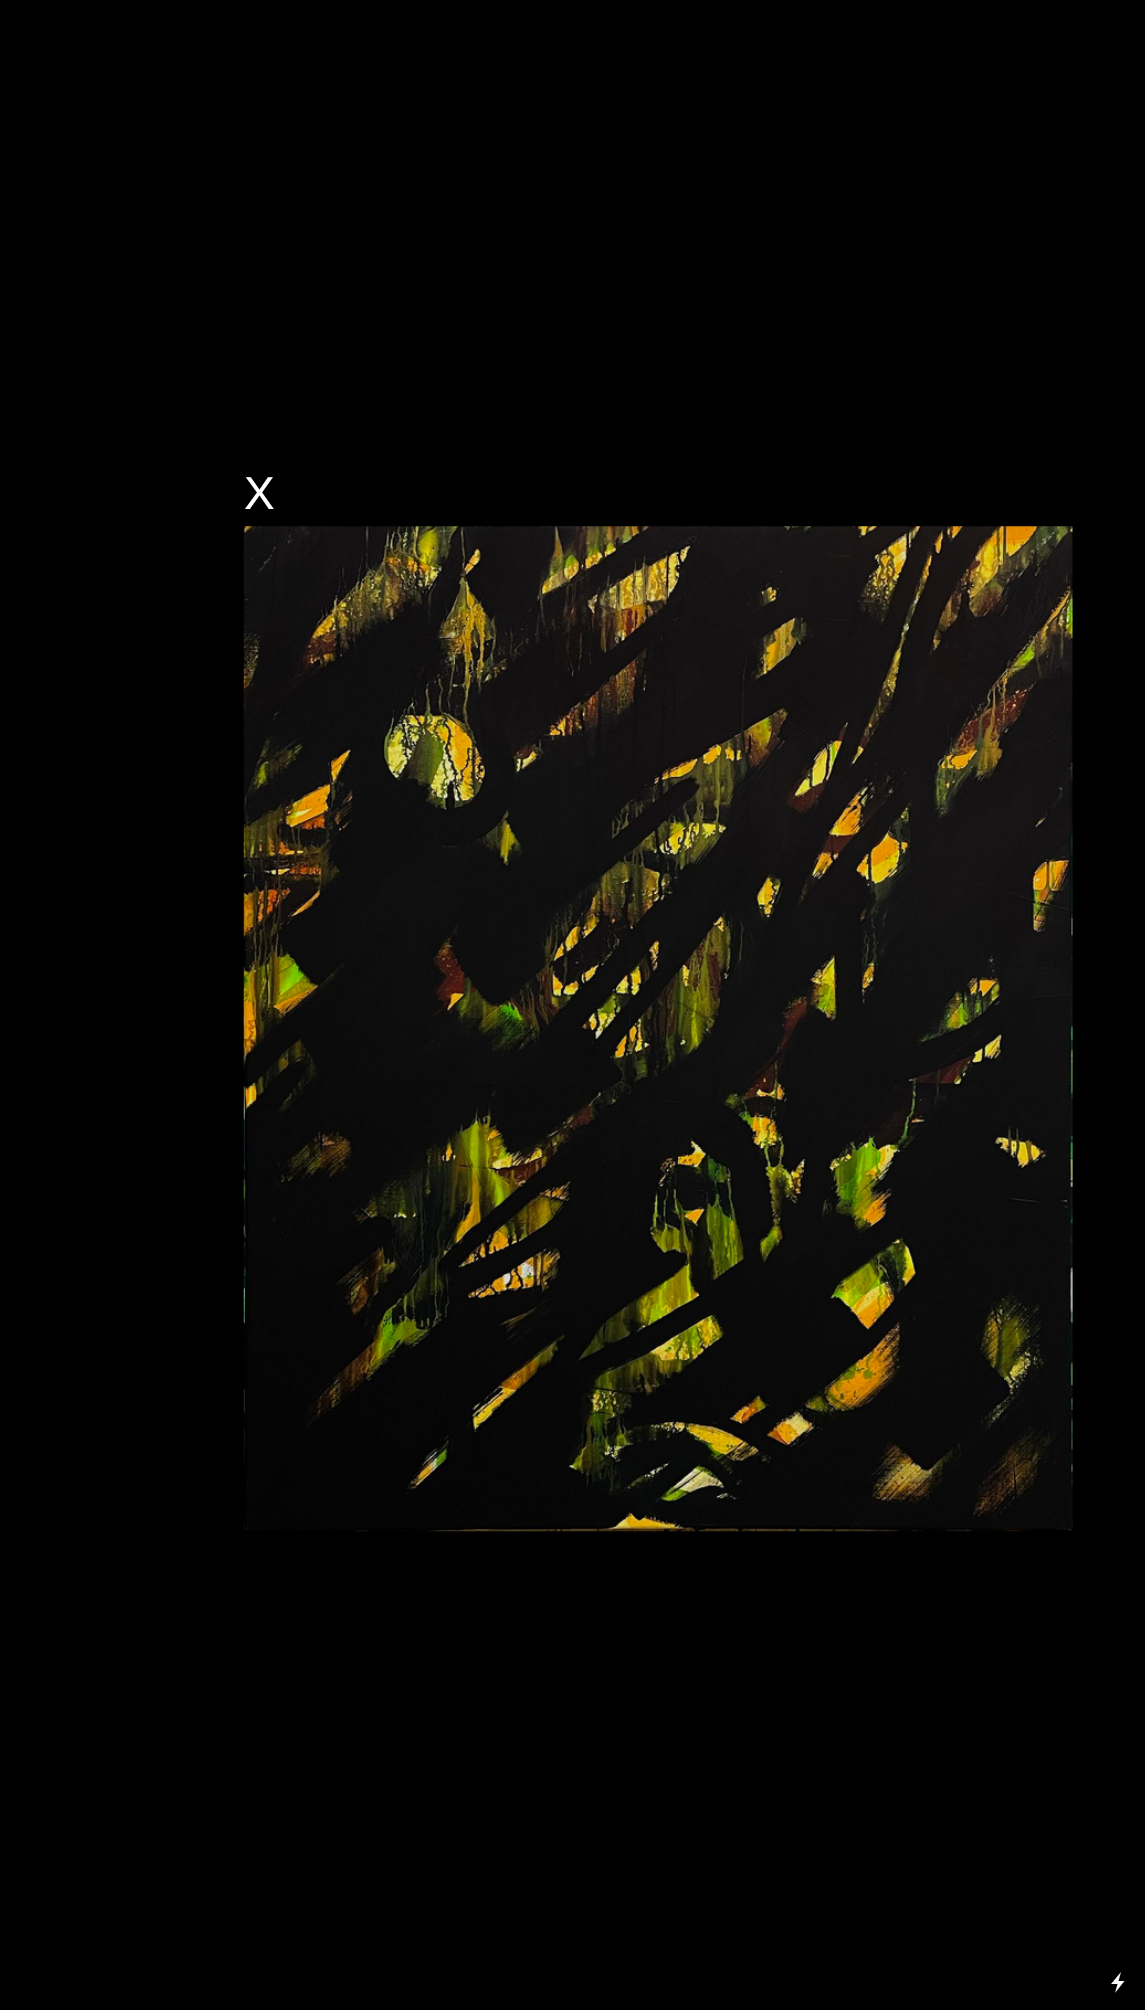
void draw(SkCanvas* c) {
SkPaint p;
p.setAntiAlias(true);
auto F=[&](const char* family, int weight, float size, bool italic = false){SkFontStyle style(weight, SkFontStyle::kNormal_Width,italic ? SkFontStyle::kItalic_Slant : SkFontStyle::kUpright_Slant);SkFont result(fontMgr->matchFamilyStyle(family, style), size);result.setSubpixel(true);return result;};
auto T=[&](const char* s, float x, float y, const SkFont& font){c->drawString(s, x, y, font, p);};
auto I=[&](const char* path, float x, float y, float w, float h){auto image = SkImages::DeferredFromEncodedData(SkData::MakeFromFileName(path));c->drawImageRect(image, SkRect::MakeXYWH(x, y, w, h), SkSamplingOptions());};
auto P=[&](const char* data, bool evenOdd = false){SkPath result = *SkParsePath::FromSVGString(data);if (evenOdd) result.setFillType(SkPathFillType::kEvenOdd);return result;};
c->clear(0xff000000);
auto f1 = F("Liberation Sans",400,46);
p.setColor(0xffffffff);
T("X",244,509,f1);
I("1.png",243,526,830,1006);
c->drawPath(P("M1124.5 1981h-6l2.5-9l-10 12h6.5l-2.5 9z"),p);
}
